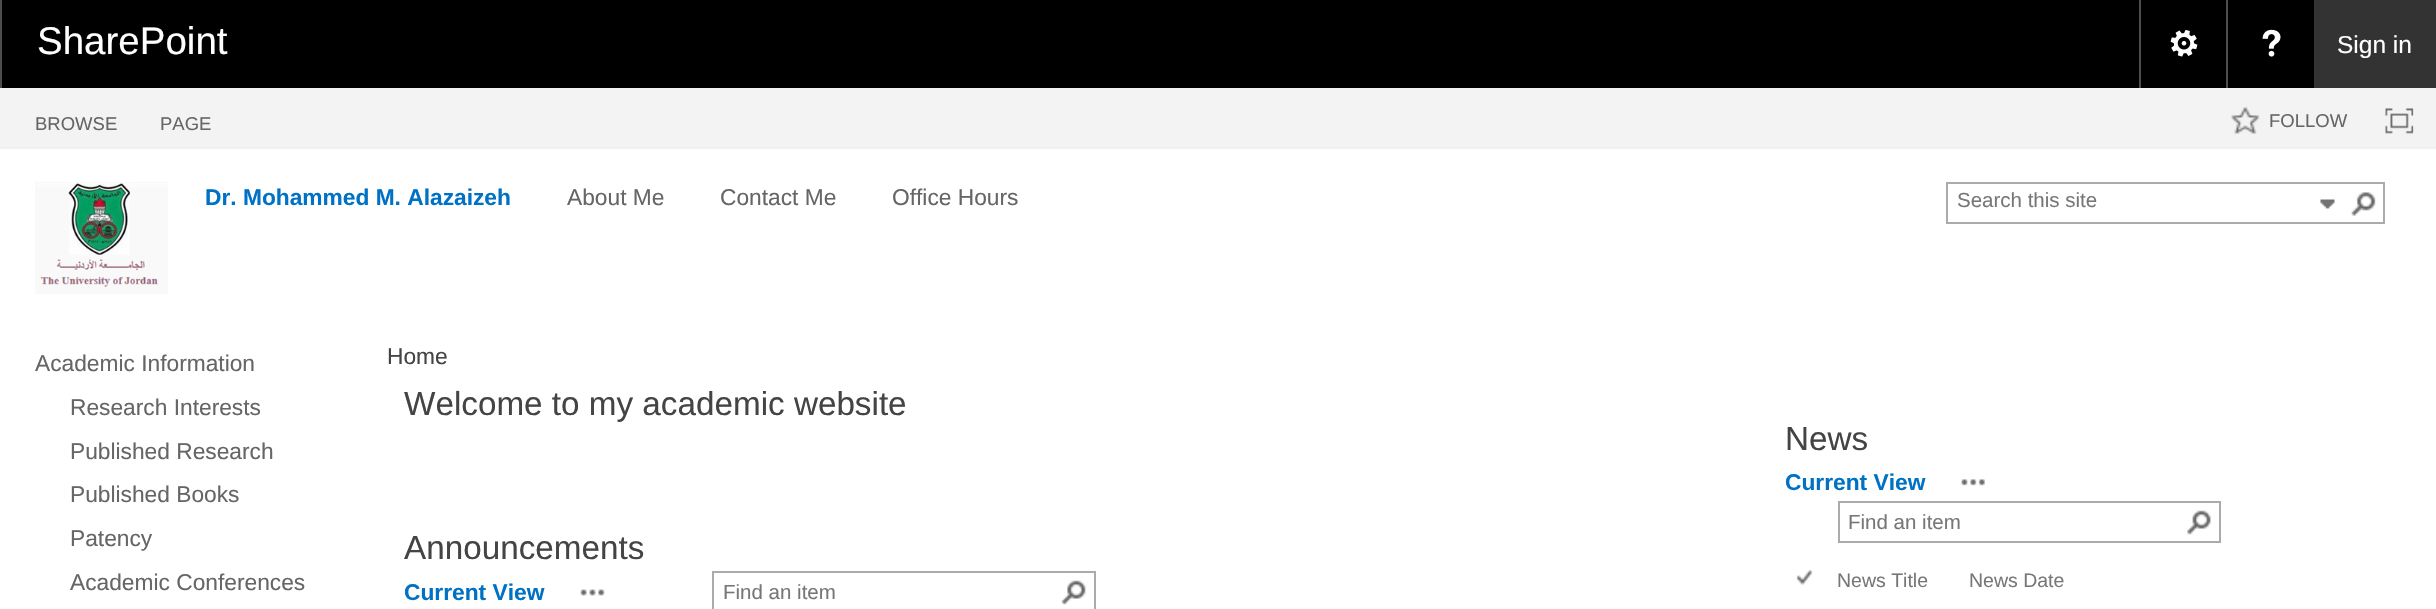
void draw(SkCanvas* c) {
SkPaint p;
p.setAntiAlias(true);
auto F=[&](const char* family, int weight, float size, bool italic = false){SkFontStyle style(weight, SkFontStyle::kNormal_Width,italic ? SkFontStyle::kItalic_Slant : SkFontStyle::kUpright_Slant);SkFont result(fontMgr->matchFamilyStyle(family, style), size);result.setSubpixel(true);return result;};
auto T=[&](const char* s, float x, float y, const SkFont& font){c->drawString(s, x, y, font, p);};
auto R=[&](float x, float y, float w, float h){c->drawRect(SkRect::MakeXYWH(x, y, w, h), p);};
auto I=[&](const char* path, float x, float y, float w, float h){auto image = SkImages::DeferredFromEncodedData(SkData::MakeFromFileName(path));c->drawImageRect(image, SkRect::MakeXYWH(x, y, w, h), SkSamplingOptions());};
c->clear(0xffffffff);
p.setColor(0xff000000);
R(2,0,2312,88);
p.setColor(0xff4d4d4d);
R(0,0,2,88);
auto f1 = F("Liberation Sans",400,38.5);
p.setColor(0xffffffff);
T("SharePoint",37,54,f1);
p.setColor(0xff4d4d4d);
R(2139,0,2,88);
I("1.png",2170,29,28,28);
R(2226,0,2,88);
I("2.png",2262,29,19,28);
p.setColor(0xff333333);
R(2314,0,122,88);
auto f2 = F("Liberation Sans",400,24.5);
p.setColor(0xffffffff);
T("Sign in",2337,53,f2);
p.setColor(0xfff3f3f3);
R(0,88,2436,59);
p.setColor(0xfff0f0f0);
R(0,147,2436,2);
auto f3 = F("Liberation Sans",400,18.5);
p.setColor(0xff666666);
T("BROWSE",35,130,f3);
T("PAGE",160,130,f3);
I("3.png",2231,107,29,28);
T("FOLLOW",2269,127,f3);
I("4.png",2385,108,29,26);
I("5.png",35,182,133,112);
auto f4 = F("Liberation Sans",700,22.75);
p.setColor(0xff0072c6);
T("Dr. Mohammed M. Alazaizeh",205,205,f4);
auto f5 = F("Liberation Sans",400,22.75);
p.setColor(0xff666666);
T("About Me",567,205,f5);
T("Contact Me",720,205,f5);
T("Office Hours",892,205,f5);
p.setStroke(true);
p.setStrokeWidth(2);
p.setColor(0xffababab);
c->drawRect(SkRect::MakeXYWH(1947,183,437,40),p);
auto f6 = F("Liberation Sans",400,20.5);
p.setStroke(false);
p.setColor(0xff777777);
T("Search this site",1957,207,f6);
I("6.png",2320,199,15,10);
I("7.png",2351,192,25,25);
p.setColor(0xff666666);
T("Academic Information",35,371,f5);
T("Research Interests",70,415,f5);
T("Published Research",70,459,f5);
T("Published Books",70,502,f5);
T("Patency",70,546,f5);
T("Academic Conferences",70,590,f5);
p.setColor(0xff444444);
T("Home",387,364,f5);
auto f7 = F("Liberation Sans",400,33.25);
T("Welcome to my academic website",404,415,f7);
T("Announcements",404,559,f7);
p.setColor(0xff0072c6);
T("Current View",404,600,f4);
I("8.png",580,589,25,7);
p.setStroke(true);
p.setColor(0xffababab);
c->drawRect(SkRect::MakeXYWH(713,572,382,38),p);
p.setStroke(false);
p.setColor(0xff777777);
T("Find an item",723,599,f6);
I("9.png",1061,580,25,25);
p.setColor(0xff444444);
T("News",1785,450,f7);
p.setColor(0xff0072c6);
T("Current View",1785,490,f4);
I("10.png",1961,479,24,7);
p.setStroke(true);
p.setColor(0xffababab);
c->drawRect(SkRect::MakeXYWH(1839,502,381,40),p);
p.setStroke(false);
p.setColor(0xff777777);
T("Find an item",1848,529,f6);
I("11.png",2187,510,24,25);
I("12.png",1796,570,17,15);
auto f8 = F("Liberation Sans",400,19.5);
T("News Title",1837,587,f8);
T("News Date",1969,587,f8);
}
